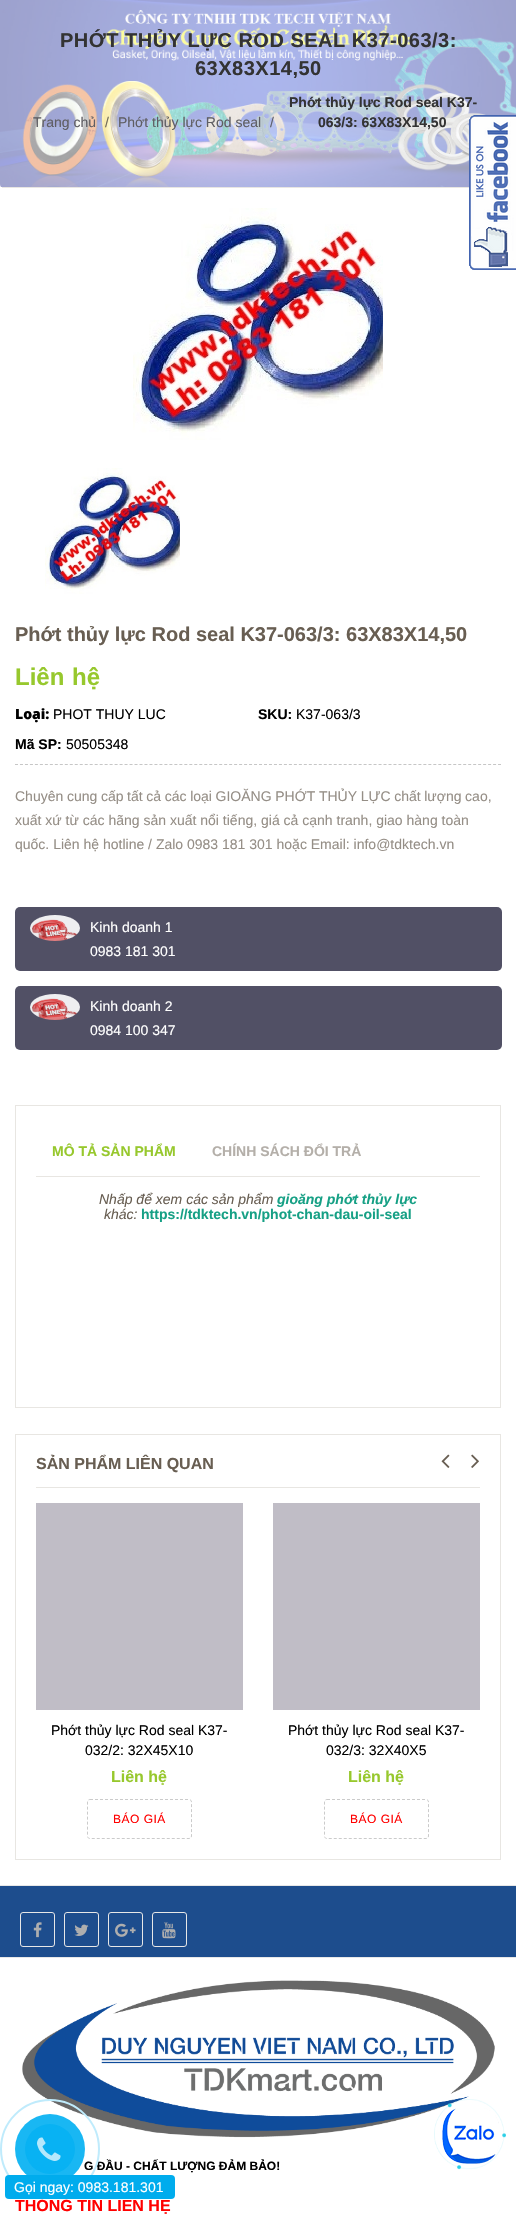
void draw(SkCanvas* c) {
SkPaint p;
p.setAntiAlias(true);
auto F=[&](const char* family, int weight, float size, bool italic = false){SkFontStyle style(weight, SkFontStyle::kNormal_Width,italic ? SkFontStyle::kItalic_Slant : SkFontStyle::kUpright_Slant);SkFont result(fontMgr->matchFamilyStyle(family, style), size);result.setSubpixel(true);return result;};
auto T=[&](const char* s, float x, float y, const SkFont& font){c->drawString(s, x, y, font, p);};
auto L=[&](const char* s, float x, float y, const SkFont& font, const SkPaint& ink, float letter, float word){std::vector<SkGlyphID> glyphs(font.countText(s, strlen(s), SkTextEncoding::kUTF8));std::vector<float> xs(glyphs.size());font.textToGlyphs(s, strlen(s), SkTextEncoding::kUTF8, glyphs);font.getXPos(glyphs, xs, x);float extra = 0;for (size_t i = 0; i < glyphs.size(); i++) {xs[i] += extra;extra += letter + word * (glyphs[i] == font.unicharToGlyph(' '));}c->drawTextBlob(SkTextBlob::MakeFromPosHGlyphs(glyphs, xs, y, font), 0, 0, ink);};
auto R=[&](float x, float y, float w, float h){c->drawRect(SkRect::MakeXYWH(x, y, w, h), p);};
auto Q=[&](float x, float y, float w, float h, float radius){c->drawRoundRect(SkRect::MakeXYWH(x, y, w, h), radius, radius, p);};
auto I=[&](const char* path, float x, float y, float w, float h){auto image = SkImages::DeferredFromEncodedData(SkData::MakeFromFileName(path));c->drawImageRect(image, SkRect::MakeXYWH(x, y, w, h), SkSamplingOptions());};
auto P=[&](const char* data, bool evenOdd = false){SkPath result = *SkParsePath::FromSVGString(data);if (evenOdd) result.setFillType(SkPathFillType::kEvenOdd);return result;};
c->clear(0xffffffff);
I("1.png",0,0,516,187);
p.setColor(0xffe8e6e2);
R(2,187,467,1);
p.setColor(0x99ffffff);
R(0,0,516,187);
auto f1 = F("Liberation Sans",700,20);
p.setColor(0xff333333);
L("PHỚT THỦY LỰC ROD SEAL K37-063/3:",60,47,f1,p,.5,0);
L("63X83X14,50",195,75,f1,p,.5,0);
auto f2 = F("Liberation Sans",400,14);
p.setColor(0xff5f5e63);
T("Trang chủ",33,127,f2);
p.setColor(0xff6f6b59);
T("/",105,127,f2);
p.setColor(0xff5f5e63);
T("Phớt thủy lực Rod seal",118,127,f2);
p.setColor(0xff5d5f6a);
T("/",270,127,f2);
auto f3 = F("Liberation Sans",700,14);
p.setColor(0xff333333);
T("Phớt thủy lực Rod seal K37-",289,107,f3);
T("063/3: 63X83X14,50",318,127,f3);
I("2.png",469,115,47,155);
I("3.png",133,208,250,232);
I("4.png",45,468,135,126);
p.setColor(0xff685e52);
T("Phớt thủy lực Rod seal K37-063/3: 63X83X14,50",15,641,f1);
auto f4 = F("Liberation Sans",700,24);
p.setColor(0xff97c82d);
L("Liên hệ",15,685,f4,p,0,1);
auto f5 = F("Open Sans",800,14);
p.setColor(0xff000000);
T("Loại:",15,719,f5);
T("PHOT THUY LUC",53,719,f2);
T("SKU:",258,719,f3);
T("K37-063/3",296,719,f2);
T("Mã SP:",15,749,f3);
T("50505348",66,749,f2);
p.setStroke(true);
p.setStrokeWidth(1);
p.setColor(0xffc6c6c6);
p.setPathEffect(SkDashPathEffect::Make({{3,1.98f}}, 0));
c->drawPath(P("M15 764.5h486"),p);
p.setPathEffect(nullptr);
p.setStroke(false);
p.setColor(0xff958e86);
L("Chuyên cung cấp tất cả các loại GIOĂNG PHỚT THỦY LỰC chất lượng cao,",15,801,f2,p,0,-.25);
T("xuất xứ từ các hãng sản xuất nổi tiếng, giá cả cạnh tranh, giao hàng toàn",15,825,f2);
T("quốc. Liên hệ hotline / Zalo 0983 181 301 hoặc Email: info@tdktech.vn",15,849,f2);
p.setColor(0xff515065);
Q(15,907,487,64,5);
I("5.png",30,915,50,26);
p.setColor(0xffffffff);
T("Kinh doanh 1",90,932,f2);
T("0983 181 301",90,956,f2);
p.setColor(0xff515065);
Q(15,986,487,64,5);
I("5.png",30,994,50,26);
p.setColor(0xffffffff);
T("Kinh doanh 2",90,1011,f2);
T("0984 100 347",90,1035,f2);
p.setStroke(true);
p.setColor(0xffe8e6e2);
c->drawRect(SkRect::MakeXYWH(15.5,1105.5,485,302),p);
p.setStroke(false);
R(36,1176,444,1);
p.setColor(0xff97c82d);
T("MÔ TẢ SẢN PHẨM",52,1156,f3);
p.setColor(0xffb4afa9);
T("CHÍNH SÁCH ĐỔI TRẢ",212,1156,f3);
auto f6 = F("Liberation Sans",400,14,true);
p.setColor(0xff685e52);
T("Nhấp để xem các sản phẩm",99,1204,f6);
auto f7 = F("Liberation Sans",700,14,true);
p.setColor(0xff16a085);
T("gioăng phớt thủy lực",277,1204,f7);
p.setColor(0xff685e52);
T("khác:",104,1219,f6);
p.setColor(0xff16a085);
T("https://tdktech.vn/phot-chan-dau-oil-seal",141,1219,f3);
p.setStroke(true);
p.setColor(0xffe8e6e2);
c->drawRect(SkRect::MakeXYWH(15.5,1434.5,485,425),p);
p.setStroke(false);
R(36,1487,444,1);
auto f8 = F("Liberation Sans",700,16);
p.setColor(0xff685e52);
T("SẢN PHẨM LIÊN QUAN",36,1469,f8);
I("6.png",441,1454,9,14);
I("7.png",471,1454,8,14);
p.setColor(0xffc0bdc6);
R(36,1503,207,207);
p.setColor(0xff000000);
T("Phớt thủy lực Rod seal K37-",51,1735,f2);
T("032/2: 32X45X10",85,1755,f2);
p.setColor(0xff97c82d);
T("Liên hệ",111,1782,f8);
p.setStroke(true);
p.setColor(0xffcbcbcb);
p.setPathEffect(SkDashPathEffect::Make({{3,2}}, 0));
c->drawPath(P("M90 1799.5h99c1.5 0 2.5 1 2.5 2.5v34c0 1.5-1 2.5-2.5 2.5h-99c-1.5 0-2.5-1-2.5-2.5v-34c0-1.5 1-2.5 2.5-2.5z"),p);
p.setPathEffect(nullptr);
auto f9 = F("Liberation Sans",400,12);
p.setStroke(false);
p.setColor(0xffff0000);
L("BÁO GIÁ",113,1823,f9,p,.5,0);
p.setColor(0xffc0bdc6);
R(273,1503,207,207);
p.setColor(0xff000000);
T("Phớt thủy lực Rod seal K37-",288,1735,f2);
T("032/3: 32X40X5",326,1755,f2);
p.setColor(0xff97c82d);
T("Liên hệ",348,1782,f8);
p.setStroke(true);
p.setColor(0xffcbcbcb);
p.setPathEffect(SkDashPathEffect::Make({{3,2}}, 0));
c->drawPath(P("M327 1799.5h99c1.5 0 2.5 1 2.5 2.5v34c0 1.5-1 2.5-2.5 2.5h-99c-1.5 0-2.5-1-2.5-2.5v-34c0-1.5 1-2.5 2.5-2.5z"),p);
p.setPathEffect(nullptr);
p.setStroke(false);
p.setColor(0xffff0000);
L("BÁO GIÁ",350,1823,f9,p,.5,0);
I("14.png",22,1980,473,158);
I("8.png",434,2099,72,71);
I("9.png",442,2108,57,56);
p.setColor(0xffe7e7e7);
R(0,1885,516,1);
p.setColor(0xff1d4d8d);
R(0,1886,516,71);
p.setColor(0xffe7e7e7);
R(0,1957,516,1);
p.setStroke(true);
c->drawRoundRect(SkRect::MakeXYWH(20.5,1912.5,34,34),2.5,2.5,p);
I("10.png",33,1922,9,16);
c->drawRoundRect(SkRect::MakeXYWH(64.5,1912.5,34,34),2.5,2.5,p);
I("11.png",74,1924,15,12);
c->drawRoundRect(SkRect::MakeXYWH(108.5,1912.5,34,34),2.5,2.5,p);
I("12.png",115,1923,21,14);
c->drawRoundRect(SkRect::MakeXYWH(152.5,1912.5,34,34),2.5,2.5,p);
I("13.png",162,1922,14,17);
auto f10 = F("Liberation Sans",700,12);
p.setStroke(false);
p.setColor(0xff000000);
T("G ĐẦU - CHẤT LƯỢNG ĐẢM BẢO!",84,2170,f10);
p.setColor(0xffff0000);
T("THÔNG TIN LIÊN HỆ",15,2211,f8);
p.setStroke(true);
p.setStrokeWidth(2);
p.setColor(0xffbfebfc);
c->drawCircle(50,2149,49,p);
p.setStroke(false);
p.setColor(0xe600aff2);
c->drawCircle(50,2149,35,p);
p.setColor(0xb300aff2);
c->drawCircle(50,2149,25,p);
I("15.png",37,2137,24,24);
p.setColor(0xff00aced);
Q(5,2175,170,24,4);
p.setColor(0xffffffff);
T("Gọi ngay: 0983.181.301",14,2192,f2);
}
